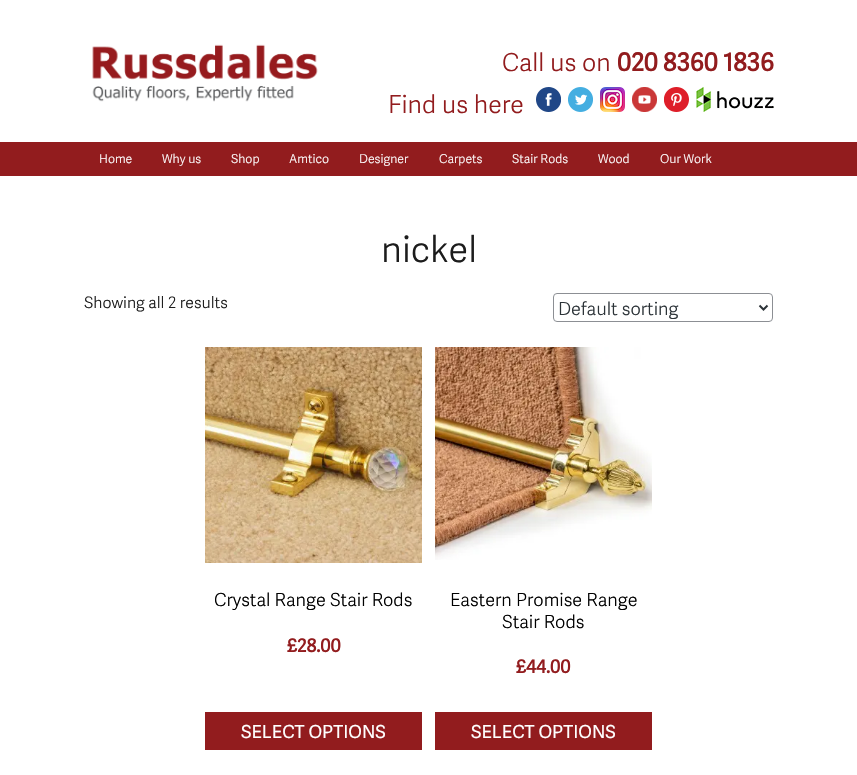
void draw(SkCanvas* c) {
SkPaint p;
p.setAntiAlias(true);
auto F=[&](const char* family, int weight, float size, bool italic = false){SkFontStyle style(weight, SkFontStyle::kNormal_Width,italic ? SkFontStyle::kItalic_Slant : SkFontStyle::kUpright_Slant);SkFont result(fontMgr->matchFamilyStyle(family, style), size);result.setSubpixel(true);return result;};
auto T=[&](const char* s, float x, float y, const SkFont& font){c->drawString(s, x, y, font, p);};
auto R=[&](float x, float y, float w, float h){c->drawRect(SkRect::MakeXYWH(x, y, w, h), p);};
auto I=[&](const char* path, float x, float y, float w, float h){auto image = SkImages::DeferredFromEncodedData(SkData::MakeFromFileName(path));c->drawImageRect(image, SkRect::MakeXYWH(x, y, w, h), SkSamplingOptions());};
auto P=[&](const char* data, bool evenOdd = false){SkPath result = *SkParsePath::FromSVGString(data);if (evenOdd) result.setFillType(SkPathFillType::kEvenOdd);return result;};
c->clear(0xffffffff);
I("1.png",92,44,226,58);
auto f1 = F("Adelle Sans",300,24.75);
p.setColor(0xff921c1e);
T("Call us on",502,71,f1);
auto f2 = F("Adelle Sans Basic",700,24.75);
T("020 8360 1836",617,71,f2);
T("Find us here",388,113,f1);
I("2.png",536,87,25,25);
I("3.png",568,87,25,25);
I("4.png",600,87,25,25);
I("5.png",632,87,25,25);
I("6.png",664,87,25,25);
I("7.png",696,87,78,25);
R(0,142,857,34);
auto f3 = F("Adelle Sans",300,12.25);
p.setColor(0xffffffff);
T("Home",99,163,f3);
T("Why us",162,163,f3);
T("Shop",231,163,f3);
T("Amtico",289,163,f3);
T("Designer",359,163,f3);
T("Carpets",439,163,f3);
T("Stair Rods",512,163,f3);
T("Wood",598,163,f3);
T("Our Work",660,163,f3);
auto f4 = F("Adelle Sans",300,36);
p.setColor(0xff1c1c1c);
T("nickel",381,262,f4);
auto f5 = F("Adelle Sans",300,15.75);
T("Showing all 2 results",84,308,f5);
p.setStroke(true);
p.setStrokeWidth(1);
p.setColor(0xff8c8f94);
c->drawRoundRect(SkRect::MakeXYWH(553.5,293.5,219,28),3.5,3.5,p);
p.setStrokeWidth(2);
p.setColor(0xff2c3338);
c->drawPath(P("M759.5 305.5l4 4l4-4"),p);
auto f6 = F("Adelle Sans",300,18);
p.setStroke(false);
T("Default sorting",558,315,f6);
I("8.png",205,347,217,216);
p.setColor(0xff000000);
T("Crystal Range Stair Rods",214,606,f6);
auto f7 = F("Adelle Sans Basic",700,18);
p.setColor(0xff921c1e);
T("£28.00",287,652,f7);
R(205,712,217,38);
auto f8 = F("Adelle Sans Basic",400,18);
p.setColor(0xffffffff);
T("SELECT OPTIONS",241,738,f8);
I("9.png",435,347,217,213);
p.setColor(0xff000000);
T("Eastern Promise Range",450,606,f6);
T("Stair Rods",502,628,f6);
p.setColor(0xff921c1e);
T("£44.00",516,673,f7);
R(435,712,217,38);
p.setColor(0xffffffff);
T("SELECT OPTIONS",471,738,f8);
}
